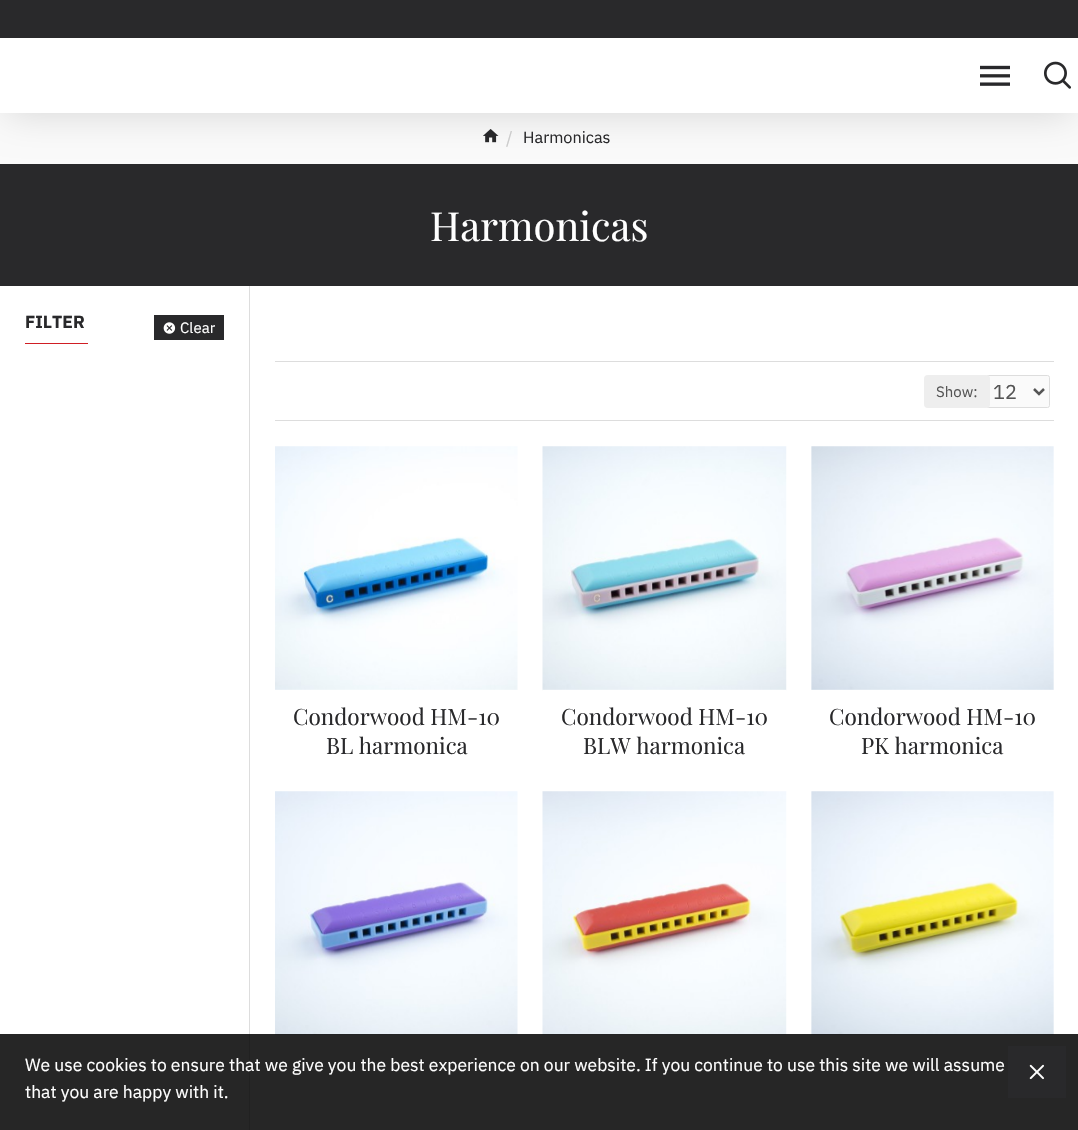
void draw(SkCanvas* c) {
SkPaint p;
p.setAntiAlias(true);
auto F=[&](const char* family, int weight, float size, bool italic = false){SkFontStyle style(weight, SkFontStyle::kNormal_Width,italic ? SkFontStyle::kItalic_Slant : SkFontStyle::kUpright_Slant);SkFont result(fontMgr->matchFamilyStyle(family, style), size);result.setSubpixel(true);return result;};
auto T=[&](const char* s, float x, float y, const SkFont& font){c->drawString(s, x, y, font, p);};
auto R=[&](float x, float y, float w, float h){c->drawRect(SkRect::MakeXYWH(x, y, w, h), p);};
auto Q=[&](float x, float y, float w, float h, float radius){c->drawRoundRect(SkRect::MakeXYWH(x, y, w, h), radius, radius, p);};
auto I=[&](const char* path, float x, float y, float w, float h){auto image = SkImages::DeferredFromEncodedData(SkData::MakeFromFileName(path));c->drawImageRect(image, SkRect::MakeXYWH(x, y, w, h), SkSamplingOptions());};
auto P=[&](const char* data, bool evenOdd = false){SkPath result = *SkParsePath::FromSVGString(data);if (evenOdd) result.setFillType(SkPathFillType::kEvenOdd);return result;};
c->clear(0xffffffff);
p.setColor(0xfffafafa);
R(0,113,1078,51);
I("3.png",483,129,16,14);
p.setColor(0xff29292b);
R(0,164,1078,122);
p.setColor(0x26000000);
p.setMaskFilter(SkMaskFilter::MakeBlur(kNormal_SkBlurStyle, 19));
c->drawRect(SkRect::MakeXYWH(6,50,1067,63),p);
p.setMaskFilter(nullptr);
p.setColor(0xffffffff);
R(0,38,1078,75);
I("1.png",980,65,30,21);
I("2.png",1044,61,27,28);
p.setColor(0xff29292b);
R(0,0,1078,38);
auto f1 = F("IBM Plex Sans",400,17.5);
p.setColor(0xffcccccc);
T("/",506,144,f1);
auto f2 = F("IBM Plex Sans",400,16.25);
p.setColor(0xff29292b);
T("Harmonicas",523,143,f2);
auto f3 = F("Playfair Display",400,40);
p.setColor(0xffffffff);
T("Harmonicas",430,241,f3);
p.setColor(0xffdddddd);
R(249,286,1,844);
auto f4 = F("IBM Plex Sans",700,17.5);
p.setColor(0xff29292b);
T("FILTER",25,328,f4);
R(154,315,70,25);
I("4.png",163,322,13,12);
auto f5 = F("IBM Plex Sans",400,15);
p.setColor(0xffffffff);
T("Clear",180,333,f5);
p.setColor(0xffd01e24);
R(25,343,63,1);
p.setColor(0xffdddddd);
R(275,361,779,1);
R(275,420,779,1);
p.setColor(0xfffafafa);
c->drawRoundRect(SkRect::MakeXYWH(986.5,375.5,63,32),2,2,p);
p.setStroke(true);
p.setStrokeWidth(1);
p.setColor(0xffdddddd);
c->drawRoundRect(SkRect::MakeXYWH(986.5,375.5,63,32),2,2,p);
p.setStroke(false);
p.setColor(0xffeeeeee);
Q(924,375,66,33,4);
p.setColor(0xff555555);
T("Show:",936,397,f5);
p.setStroke(true);
p.setStrokeWidth(2.5);
c->drawPath(P("M1034 389l5 5l5-5"),p);
auto f6 = F("IBM Plex Sans",400,20);
p.setStroke(false);
T("12",993,399,f6);
I("5.png",275,446,243,244);
auto f7 = F("Playfair Display",400,22.5);
p.setColor(0xff29292b);
T("Condorwood HM-10",293,725,f7);
T("BL harmonica",326,754,f7);
I("6.png",542,446,245,245);
p.setColor(0xffffffff);
R(543,690,243,1);
p.setColor(0xff29292b);
T("Condorwood HM-10",561,725,f7);
T("BLW harmonica",583,754,f7);
I("7.png",811,446,243,244);
T("Condorwood HM-10",829,725,f7);
T("PK harmonica",861,754,f7);
I("8.png",275,791,243,244);
I("9.png",542,791,245,245);
p.setColor(0xffffffff);
R(543,1035,243,1);
I("10.png",811,791,243,244);
p.setColor(0xd9000000);
R(0,1034,1078,96);
p.setColor(0xffffffff);
T("We use cookies to ensure that we give you the best experience on our website. If you continue to use this site we will assume",25,1071,f1);
T("that you are happy with it.",25,1098,f1);
p.setColor(0xff29292b);
R(1008,1046,58,52);
I("11.png",1029,1064,15,16);
}
